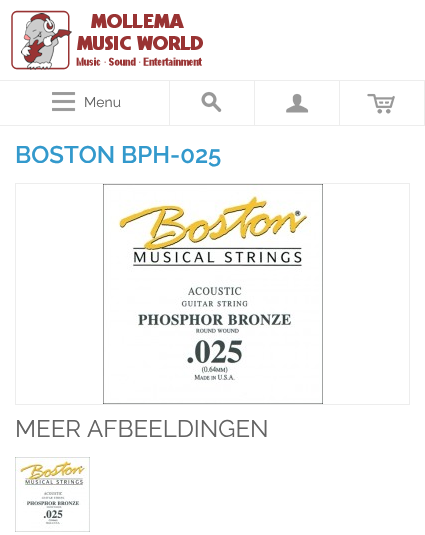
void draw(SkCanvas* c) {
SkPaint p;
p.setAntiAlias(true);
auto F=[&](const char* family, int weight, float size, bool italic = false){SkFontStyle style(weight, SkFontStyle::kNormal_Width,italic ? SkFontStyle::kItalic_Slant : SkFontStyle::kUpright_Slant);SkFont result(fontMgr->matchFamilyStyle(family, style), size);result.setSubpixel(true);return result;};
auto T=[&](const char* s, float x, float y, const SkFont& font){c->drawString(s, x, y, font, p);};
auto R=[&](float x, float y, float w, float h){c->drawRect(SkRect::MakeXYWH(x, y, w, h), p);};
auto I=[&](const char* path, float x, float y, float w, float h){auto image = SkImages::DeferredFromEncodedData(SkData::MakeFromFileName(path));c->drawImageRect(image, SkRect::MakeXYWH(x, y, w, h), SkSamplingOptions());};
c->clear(0xffffffff);
I("1.png",11,10,192,60);
p.setColor(0xffededed);
R(0,80,425,1);
R(0,125,425,1);
R(169,81,1,44);
I("2.png",52,92,24,20);
auto f1 = F("Raleway",400,14);
p.setColor(0xff636363);
T("Menu",84,107,f1);
p.setColor(0xffededed);
R(254,81,1,44);
I("3.png",201,91,21,22);
R(339,81,1,44);
I("4.png",286,93,23,20);
R(424,81,1,44);
I("5.png",367,93,28,21);
auto f2 = F("Raleway",600,24);
p.setColor(0xff3399cc);
T("BOSTON BPH-025",15,163,f2);
p.setStroke(true);
p.setStrokeWidth(1);
p.setColor(0xffededed);
c->drawRect(SkRect::MakeXYWH(15.5,183.5,394,221),p);
I("6.png",103,184,220,220);
auto f3 = F("Raleway",400,24);
p.setStroke(false);
p.setColor(0xff636363);
T("MEER AFBEELDINGEN",15,437,f3);
I("7.png",15,457,75,75);
}
